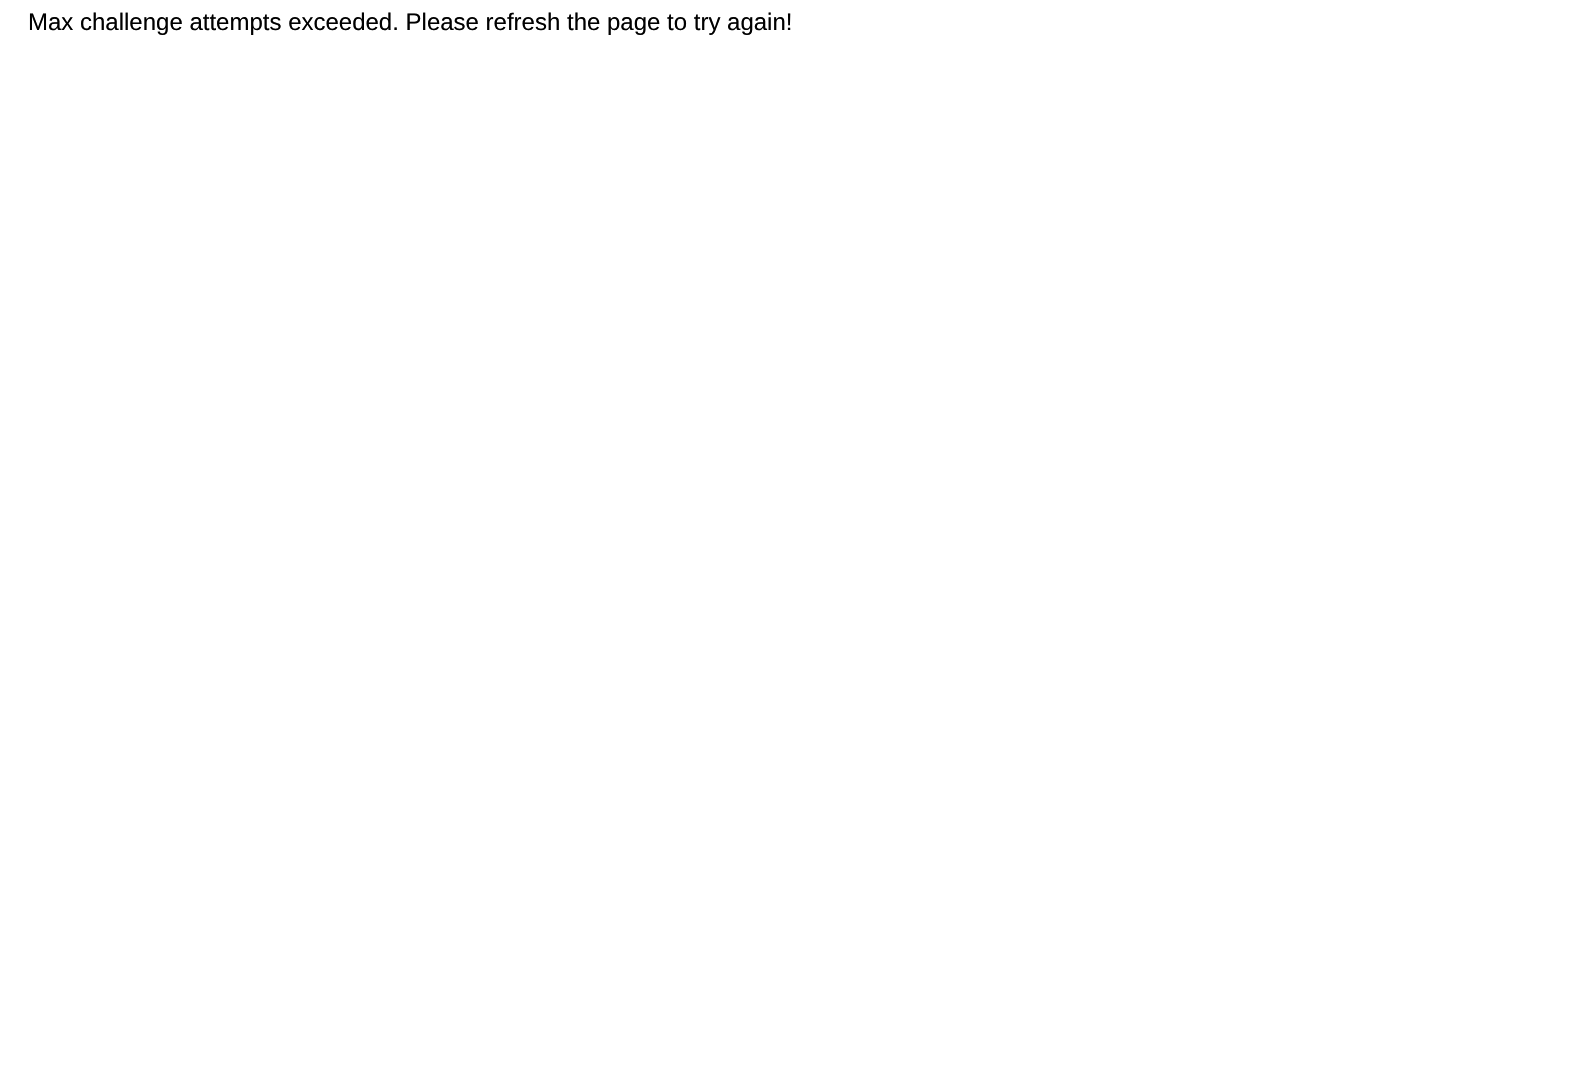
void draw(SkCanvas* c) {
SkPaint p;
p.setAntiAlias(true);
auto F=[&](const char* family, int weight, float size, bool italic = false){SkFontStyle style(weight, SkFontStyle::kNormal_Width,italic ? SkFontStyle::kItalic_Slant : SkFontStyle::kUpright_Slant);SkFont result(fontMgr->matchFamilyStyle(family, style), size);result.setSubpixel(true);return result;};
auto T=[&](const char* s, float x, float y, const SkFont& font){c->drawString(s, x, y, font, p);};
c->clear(0xffffffff);
auto f1 = F("Liberation Sans",400,24);
p.setColor(0xff000000);
T("Max challenge attempts exceeded. Please refresh the page to try again!",28,30,f1);
}
